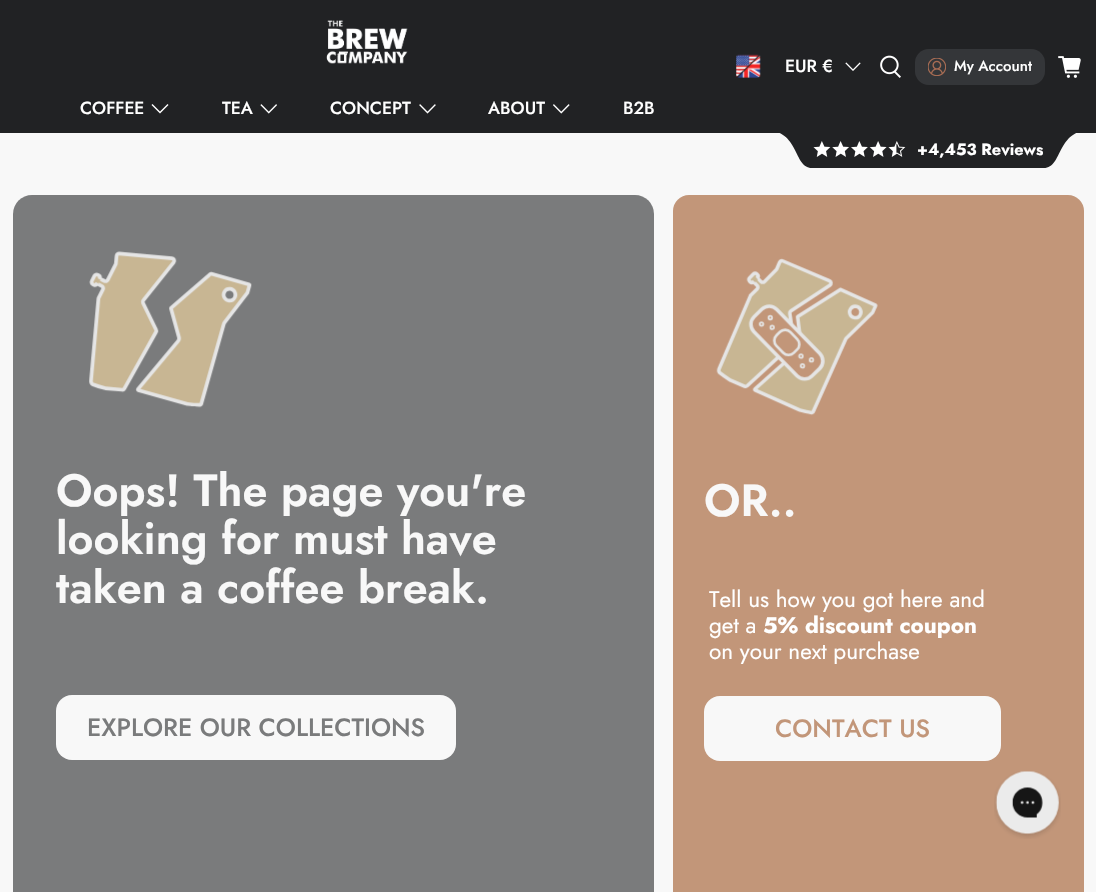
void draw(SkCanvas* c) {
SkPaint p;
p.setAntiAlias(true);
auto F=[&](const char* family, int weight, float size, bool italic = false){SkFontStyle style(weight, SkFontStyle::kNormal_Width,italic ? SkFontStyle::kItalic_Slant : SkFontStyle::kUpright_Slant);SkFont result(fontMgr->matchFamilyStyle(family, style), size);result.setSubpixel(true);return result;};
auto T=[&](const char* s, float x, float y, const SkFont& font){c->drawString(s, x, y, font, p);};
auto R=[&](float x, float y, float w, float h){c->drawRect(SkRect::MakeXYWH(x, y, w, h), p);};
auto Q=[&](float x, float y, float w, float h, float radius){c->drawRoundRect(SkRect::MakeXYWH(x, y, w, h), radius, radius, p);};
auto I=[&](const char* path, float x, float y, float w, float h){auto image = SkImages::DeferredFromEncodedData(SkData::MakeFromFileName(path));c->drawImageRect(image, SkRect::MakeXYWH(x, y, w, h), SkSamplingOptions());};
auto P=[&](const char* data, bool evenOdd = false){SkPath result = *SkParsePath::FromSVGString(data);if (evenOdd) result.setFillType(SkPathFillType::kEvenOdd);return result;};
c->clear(0xfff8f8f8);
p.setColor(0xff212224);
R(0,0,1096,133);
I("1.png",736,54,25,24);
auto f1 = F("Jost",500,17.5);
p.setColor(0xffffffff);
T("EUR €",785,72,f1);
I("2.png",845,62,16,9);
I("3.png",880,55,21,23);
p.setColor(0xff343639);
Q(915,49,130,36,14);
I("4.png",928,58,18,18);
auto f2 = F("Jost",500,15);
p.setColor(0xffffffff);
T("My Account",954,71,f2);
I("5.png",1058,56,23,22);
I("6.png",326,20,82,44);
T("COFFEE",80,114,f1);
c->drawPath(P("M160 113.5l-8.5-8.5l1-1l7.5 7.5l7.5-7.5l1 1z"),p);
T("TEA",222,114,f1);
I("7.png",260,104,17,10);
T("CONCEPT",330,114,f1);
I("8.png",419,104,17,10);
T("ABOUT",488,114,f1);
I("9.png",553,104,17,10);
T("B2B",623,114,f1);
p.setColor(0xff212224);
c->drawPath(P("M765 130h47v38c-19 0-12-38-47-38z"),p);
R(811,133,234,35);
I("10.png",813,141,18,16);
I("11.png",832,141,17,16);
I("12.png",851,141,17,16);
I("13.png",869,141,18,16);
I("14.png",888,141,18,16);
auto f3 = F("Jost",700,16.25);
p.setColor(0xffffffff);
T("+4,453 Reviews",917,155,f3);
p.setColor(0xff212224);
c->drawPath(P("M1091 130h-47v38c19 0 12-38 47-38z"),p);
p.setColor(0xff7a7b7c);
Q(13,195,641,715,19);
I("15.png",89,251,163,157);
auto f4 = F("Jost",600,45);
p.setColor(0xfff8f8f8);
T("Oops! The page you're",56,506,f4);
T("looking for must have",56,554,f4);
T("taken a coffee break.",56,603,f4);
Q(56,695,400,65,16);
auto f5 = F("Jost",500,25);
p.setColor(0xff7a7b7c);
T("EXPLORE OUR COLLECTIONS",87,736,f5);
p.setColor(0xffc29679);
Q(673,195,411,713,16);
I("16.png",716,258,162,158);
p.setColor(0xfff8f8f8);
T("OR..",704,516,f4);
auto f6 = F("Jost",400,22.5);
p.setColor(0xffffffff);
T("Tell us how you got here and",709,607,f6);
T("get a",709,633,f6);
auto f7 = F("Jost",700,22.5);
T("5% discount coupon",763,633,f7);
T("on your next purchase",709,659,f6);
p.setColor(0xfff8f8f8);
Q(704,696,297,65,16);
p.setColor(0xffc29679);
T("CONTACT US",775,737,f5);
I("17.png",994,771,67,68);
}
